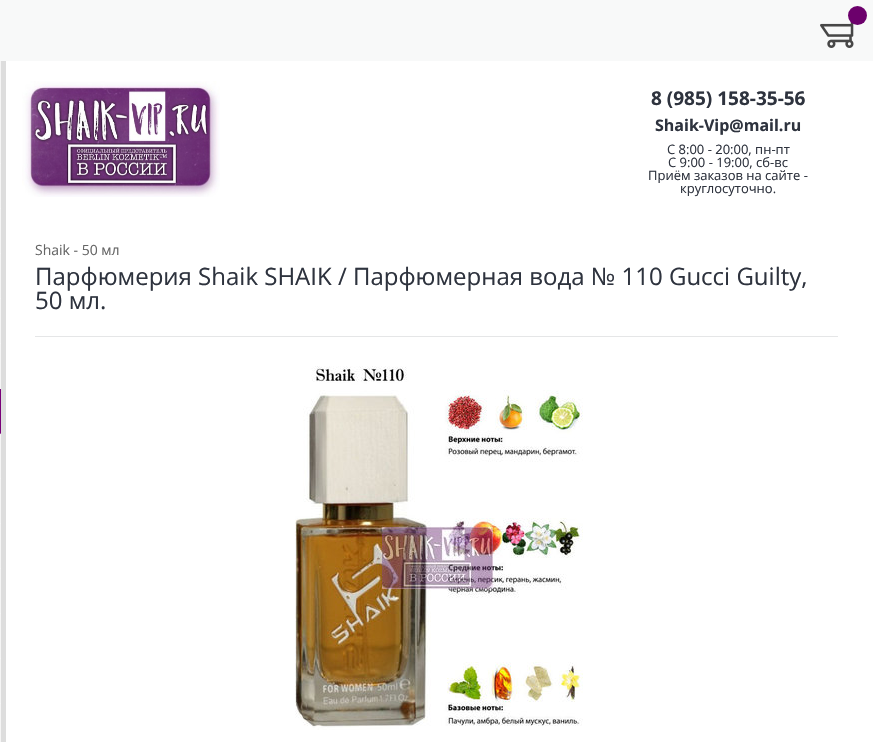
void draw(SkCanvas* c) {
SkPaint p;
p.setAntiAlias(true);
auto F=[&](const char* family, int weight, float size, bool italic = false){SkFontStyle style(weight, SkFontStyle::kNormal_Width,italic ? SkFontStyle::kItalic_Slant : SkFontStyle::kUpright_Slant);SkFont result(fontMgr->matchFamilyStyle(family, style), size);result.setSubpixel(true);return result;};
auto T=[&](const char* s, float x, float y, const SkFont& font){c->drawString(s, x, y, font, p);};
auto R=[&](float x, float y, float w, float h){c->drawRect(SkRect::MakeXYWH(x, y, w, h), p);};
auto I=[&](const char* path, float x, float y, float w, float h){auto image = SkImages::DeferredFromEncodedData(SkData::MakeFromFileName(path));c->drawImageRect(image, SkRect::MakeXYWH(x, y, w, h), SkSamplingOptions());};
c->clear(0xffffffff);
p.setColor(0xfff5f5f5);
R(0,61,1,681);
p.setColor(0xffdddddd);
R(1,61,5,681);
p.setColor(0xfff8f8f8);
R(0,163,1,1);
R(0,208,1,1);
R(0,253,1,1);
R(0,298,1,1);
R(0,343,1,1);
R(0,388,1,1);
p.setColor(0xff780078);
R(0,389,1,45);
p.setColor(0xffa14da1);
R(0,433,1,1);
p.setColor(0xfff8f8f8);
R(0,478,1,1);
R(0,523,1,1);
R(0,568,1,1);
R(0,613,1,1);
R(0,658,1,1);
R(0,703,1,1);
p.setColor(0xfff8f9f9);
R(0,0,873,61);
I("1.png",820,21,34,27);
p.setColor(0xff6c006c);
c->drawCircle(857.5,15.5,9.5,p);
I("2.png",22,81,198,116);
auto f1 = F("Open Sans",700,19);
p.setColor(0xff2e333e);
T("8 (985) 158-35-56",651,105,f1);
auto f2 = F("Open Sans",700,16);
T("Shaik-Vip@mail.ru",655,131,f2);
auto f3 = F("Open Sans",400,13);
T("C 8:00 - 20:00, пн-пт",667,154,f3);
T("С 9:00 - 19:00, сб-вс",668,167,f3);
T("Приём заказов на сайте -",648,180,f3);
T("круглосуточно.",680,193,f3);
auto f4 = F("Open Sans",400,14);
p.setColor(0xff666666);
T("Shaik - 50 мл",35,255,f4);
auto f5 = F("Open Sans",400,24);
p.setColor(0xff2e333e);
T("Парфюмерия Shaik SHAIK / Парфюмерная вода № 110 Gucci Guilty,",35,285,f5);
T("50 мл.",35,309,f5);
p.setColor(0xffe5e6e7);
R(35,336,803,1);
I("3.png",295,366,288,364);
}
